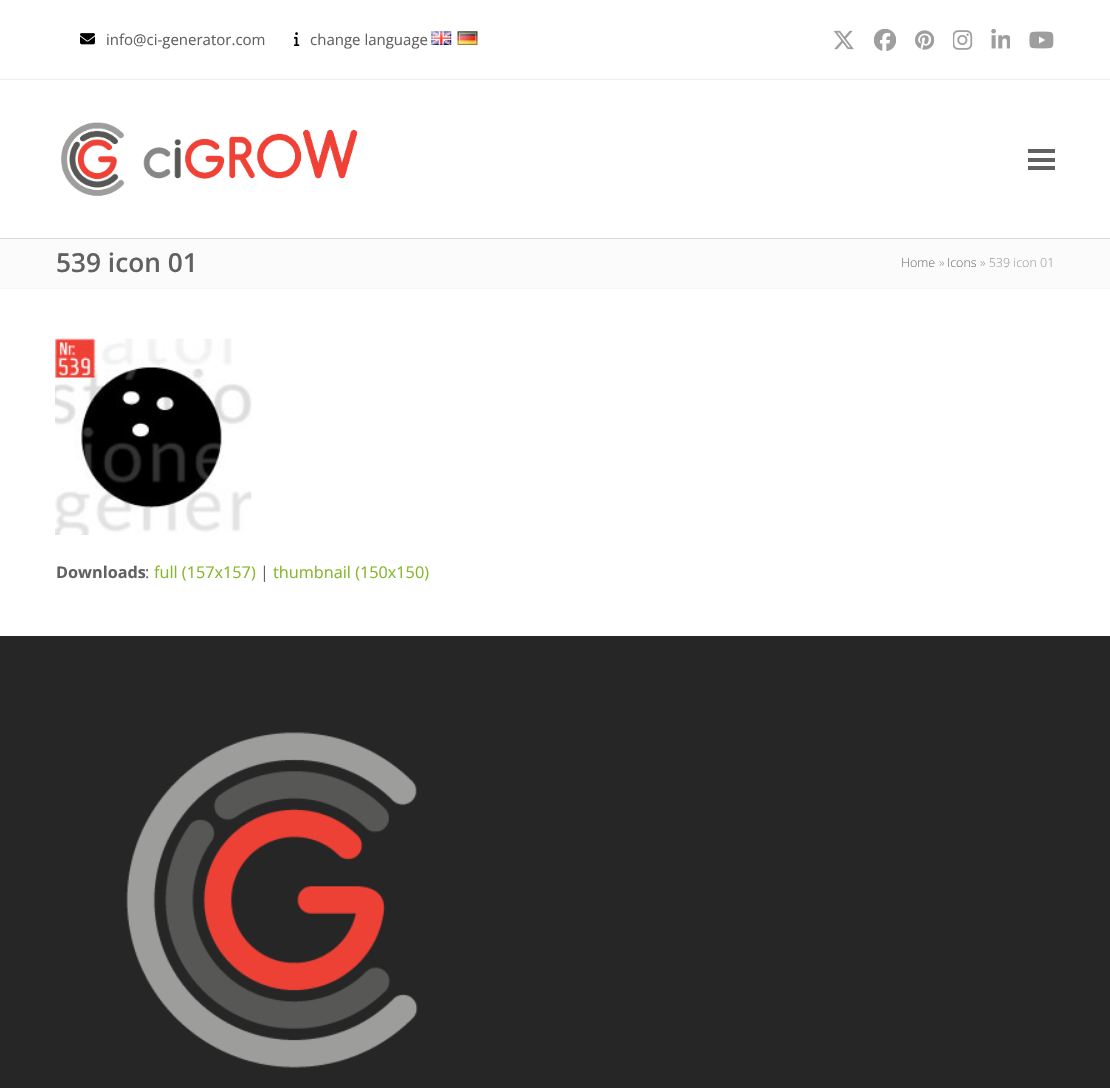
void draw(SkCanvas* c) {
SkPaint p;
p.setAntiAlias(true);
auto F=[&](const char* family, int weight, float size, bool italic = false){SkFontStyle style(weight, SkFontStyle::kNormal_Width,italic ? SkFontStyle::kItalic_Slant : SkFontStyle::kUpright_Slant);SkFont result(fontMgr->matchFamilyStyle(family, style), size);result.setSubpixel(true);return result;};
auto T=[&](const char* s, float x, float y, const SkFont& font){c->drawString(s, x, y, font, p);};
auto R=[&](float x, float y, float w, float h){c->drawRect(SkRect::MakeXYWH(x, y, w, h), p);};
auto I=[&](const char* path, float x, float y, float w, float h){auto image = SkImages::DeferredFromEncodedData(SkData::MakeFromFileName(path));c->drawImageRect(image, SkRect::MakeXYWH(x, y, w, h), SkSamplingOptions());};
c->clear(0xffffffff);
p.setColor(0xffeeeeee);
R(0,79,1110,1);
I("1.png",80,33,15,12);
auto f1 = F("Open Sans",400,15);
p.setColor(0xff616161);
T("info@ci-generator.com",106,45,f1);
I("2.png",294,32,6,14);
T("change language",310,45,f1);
I("3.png",431,31,21,14);
I("4.png",457,31,21,14);
I("5.png",834,30,20,20);
I("6.png",874,29,22,22);
I("7.png",915,30,19,20);
I("8.png",953,30,20,20);
I("9.png",991,29,19,20);
I("10.png",1029,31,25,18);
I("11.png",61,122,297,74);
R(1028,158,27,4);
R(1028,149,27,4);
R(1028,166,27,4);
p.setColor(0xfffbfbfb);
R(0,239,1110,49);
p.setColor(0xffd8d8d8);
R(0,238,1110,1);
p.setColor(0xfff4f4f4);
R(0,288,1110,1);
auto f2 = F("Open Sans",600,26.25);
p.setColor(0xff616161);
T("539 icon 01",56,272,f2);
auto f3 = F("Open Sans",300,12.5);
p.setColor(0xff757575);
T("Home",901,267,f3);
p.setColor(0xff9e9e9e);
T("»",939,267,f3);
p.setColor(0xff757575);
T("Icons",947,267,f3);
p.setColor(0xff9e9e9e);
T("» 539 icon 01",980,267,f3);
I("12.png",55,338,197,197);
auto f4 = F("Open Sans",700,16.25);
p.setColor(0xff616161);
T("Downloads",56,578,f4);
auto f5 = F("Open Sans",400,16.25);
T(":",145,578,f5);
p.setColor(0xff86b72a);
T("full (157x157)",154,578,f5);
p.setColor(0xff616161);
T("|",260,578,f5);
p.setColor(0xff86b72a);
T("thumbnail (150x150)",273,578,f5);
p.setColor(0xff262626);
R(0,636,1110,452);
I("13.png",126,732,292,336);
}
